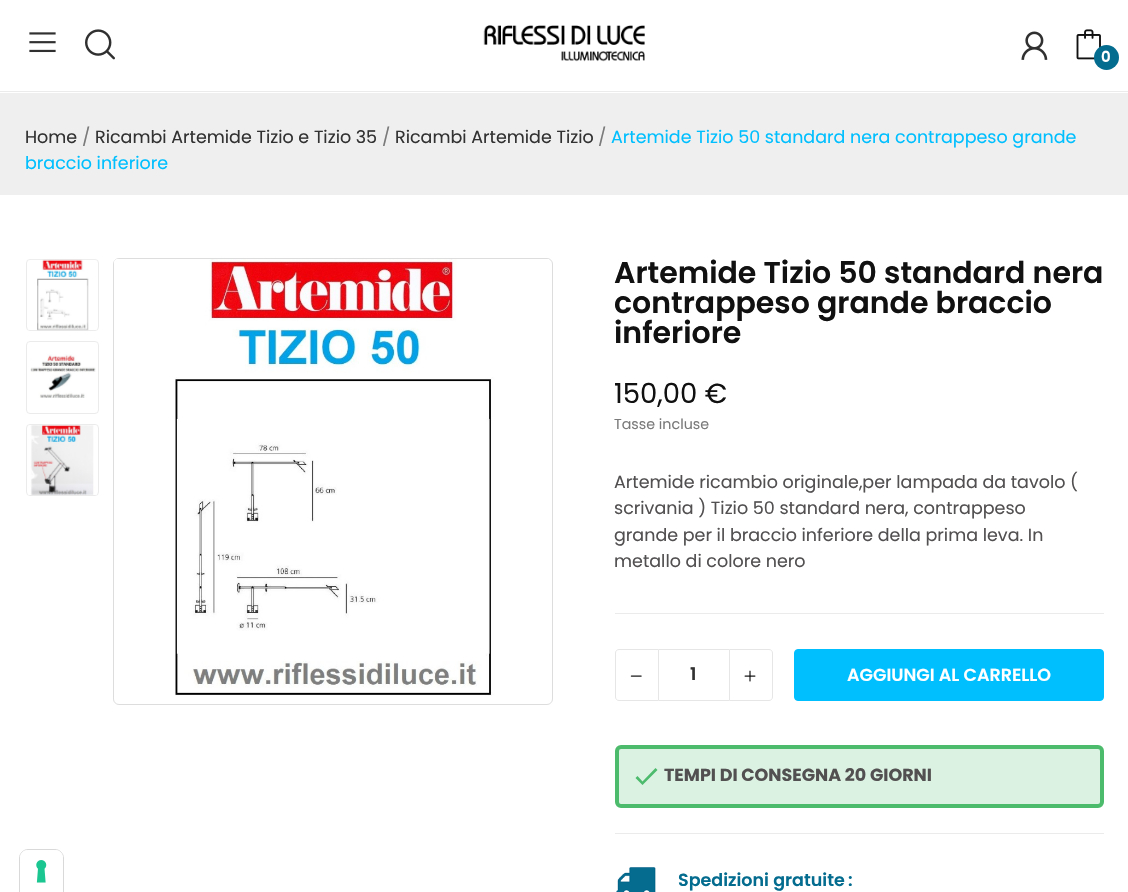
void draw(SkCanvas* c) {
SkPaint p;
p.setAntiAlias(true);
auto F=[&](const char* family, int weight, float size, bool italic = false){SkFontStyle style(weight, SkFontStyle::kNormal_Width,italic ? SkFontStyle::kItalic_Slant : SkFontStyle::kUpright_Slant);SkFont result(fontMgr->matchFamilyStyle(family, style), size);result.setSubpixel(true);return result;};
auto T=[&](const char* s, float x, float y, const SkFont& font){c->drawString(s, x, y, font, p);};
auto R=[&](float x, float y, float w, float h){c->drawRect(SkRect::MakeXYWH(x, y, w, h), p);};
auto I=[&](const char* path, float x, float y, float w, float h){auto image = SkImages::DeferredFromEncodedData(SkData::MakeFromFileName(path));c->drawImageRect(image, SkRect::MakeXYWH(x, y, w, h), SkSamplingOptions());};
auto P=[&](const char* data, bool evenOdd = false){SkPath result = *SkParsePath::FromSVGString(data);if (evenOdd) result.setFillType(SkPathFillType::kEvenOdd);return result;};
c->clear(0xffffffff);
p.setColor(0xffebebeb);
R(0,91,1128,1);
I("1.png",29,32,27,21);
I("2.png",85,29,30,31);
I("3.png",483,25,162,37);
I("4.png",1021,31,27,29);
I("5.png",1076,29,25,31);
p.setColor(0xff046c8f);
c->drawCircle(1106.5,57.5,12.5,p);
auto f1 = F("Poppins",600,15);
p.setColor(0xffffffff);
T("0",1101,62,f1);
p.setColor(0xffefefef);
R(0,93,1128,102);
auto f2 = F("Poppins",400,17.5);
p.setColor(0xff323232);
T("Home",25,143,f2);
p.setColor(0xff7a7a7a);
T("/",82,143,f2);
p.setColor(0xff323232);
T("Ricambi Artemide Tizio e Tizio 35",95,143,f2);
p.setColor(0xff7a7a7a);
T("/",382,143,f2);
p.setColor(0xff323232);
T("Ricambi Artemide Tizio",395,143,f2);
p.setColor(0xff7a7a7a);
T("/",598,143,f2);
p.setColor(0xff00bfff);
T("Artemide Tizio 50 standard nera contrappeso grande",611,143,f2);
T("braccio inferiore",25,169,f2);
p.setStroke(true);
p.setStrokeWidth(1);
p.setColor(0xffebebeb);
c->drawRoundRect(SkRect::MakeXYWH(26.5,259.5,72,71),3.5,3.5,p);
I("6.png",28,259,69,72);
c->drawRoundRect(SkRect::MakeXYWH(26.5,341.5,72,72),3.5,3.5,p);
I("7.png",30,354,66,44);
c->drawRoundRect(SkRect::MakeXYWH(26.5,424.5,72,71),3.5,3.5,p);
I("8.png",28,425,69,70);
p.setColor(0xffdddddd);
c->drawRoundRect(SkRect::MakeXYWH(113.5,258.5,439,446),5.5,5.5,p);
p.setStroke(false);
p.setColor(0xffffffff);
c->drawPath(P("M119 259h427c3 0 5 2 5 5v432h-437v-432c0-3 2-5 5-5z"),p);
I("9.png",114,259,435,437);
auto f3 = F("Poppins",600,30);
p.setColor(0xff121111);
T("Artemide Tizio 50 standard nera",614,283,f3);
T("contrappeso grande braccio",614,313,f3);
T("inferiore",614,343,f3);
auto f4 = F("Poppins",400,27.5);
T("150,00 €",614,403,f4);
auto f5 = F("Poppins",400,14.25);
p.setColor(0xff7a7a7a);
T("Tasse incluse",614,429,f5);
p.setColor(0xffebebeb);
R(615,613,489,1);
p.setColor(0xff525050);
T("Artemide ricambio originale,per lampada da tavolo (",614,488,f2);
T("scrivania ) Tizio 50 standard nera, contrappeso",614,514,f2);
T("grande per il braccio inferiore della prima leva. In",614,541,f2);
T("metallo di colore nero",614,567,f2);
p.setStroke(true);
p.setColor(0xffe6e6e6);
c->drawPath(P("M619 649.5h39.5v51h-39.5c-2 0-3.5-1.5-3.5-3.5v-44c0-2 1.5-3.5 3.5-3.5z"),p);
I("10.png",630,675,12,2);
c->drawPath(P("M729.5 649.5h39.5c2 0 3.5 1.5 3.5 3.5v44c0 2-1.5 3.5-3.5 3.5h-39.5z"),p);
I("11.png",744,670,12,12);
p.setStroke(false);
R(659,649,70,1);
R(659,700,70,1);
auto f6 = F("Poppins",600,17.5);
p.setColor(0xff323232);
T("1",690,680,f6);
p.setColor(0xff00bfff);
c->drawRoundRect(SkRect::MakeXYWH(794.5,649.5,309,51),3.5,3.5,p);
p.setStroke(true);
c->drawRoundRect(SkRect::MakeXYWH(794.5,649.5,309,51),3.5,3.5,p);
p.setStroke(false);
p.setColor(0xffffffff);
T("AGGIUNGI AL CARRELLO",847,681,f6);
p.setColor(0xffdbf1e2);
c->drawRoundRect(SkRect::MakeXYWH(617,747,485,59),4,4,p);
p.setStroke(true);
p.setStrokeWidth(4);
p.setColor(0xff4cbb6c);
c->drawRoundRect(SkRect::MakeXYWH(617,747,485,59),4,4,p);
p.setStroke(false);
c->drawPath(P("M642.5 781.5l13-13.5l2 2l-15 15l-7-7l2-2z"),p);
auto f7 = F("Poppins",700,17.5);
p.setColor(0xff525050);
T("TEMPI DI CONSEGNA 20 GIORNI",664,781,f7);
p.setColor(0xffebebeb);
R(615,833,489,1);
I("12.png",616,867,40,25);
p.setColor(0xff046c8f);
T("Spedizioni gratuite",678,886,f6);
T(":",848,886,f6);
p.setStroke(true);
p.setStrokeWidth(1);
p.setColor(0xffd9d9d9);
c->drawPath(P("M28 849.5h27c4.5 0 8.5 4 8.5 8.5v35.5h-44v-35.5c0-4.5 4-8.5 8.5-8.5z"),p);
p.setStroke(false);
p.setColor(0xffffffff);
c->drawPath(P("M28 850h27c4.5 0 8 3.5 8 8v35h-43v-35c0-4.5 3.5-8 8-8z"),p);
I("13.png",36,860,11,23);
}
